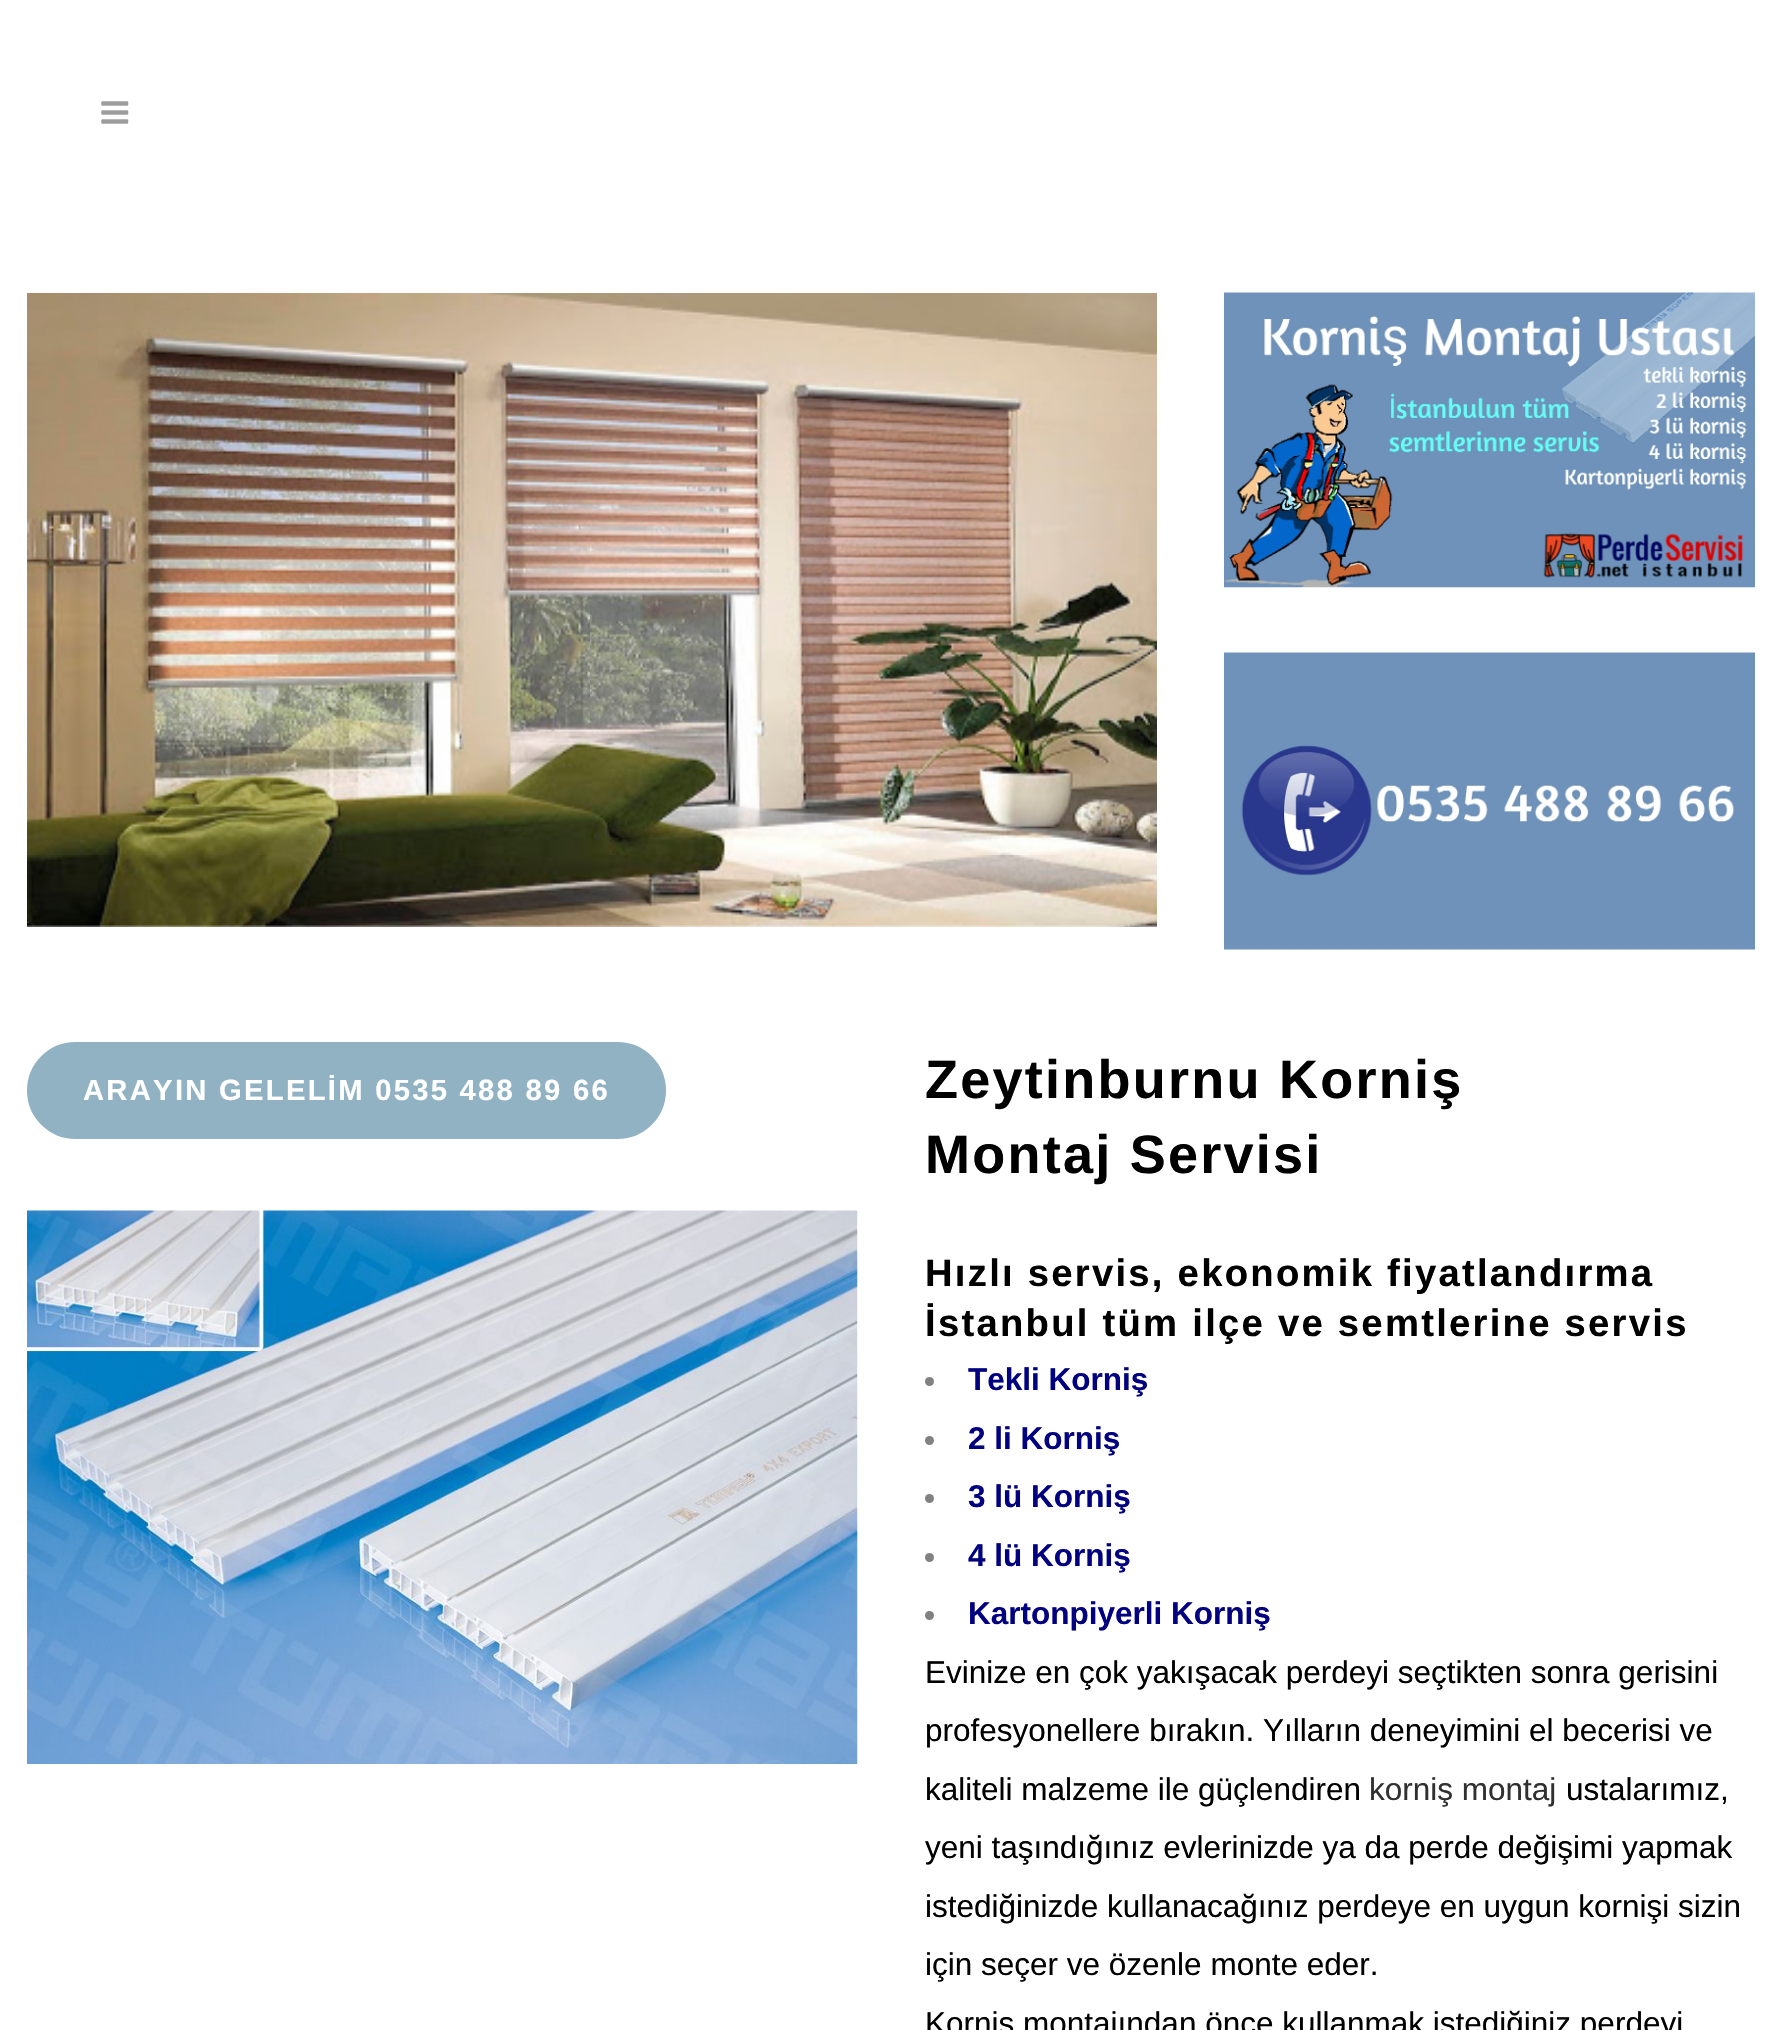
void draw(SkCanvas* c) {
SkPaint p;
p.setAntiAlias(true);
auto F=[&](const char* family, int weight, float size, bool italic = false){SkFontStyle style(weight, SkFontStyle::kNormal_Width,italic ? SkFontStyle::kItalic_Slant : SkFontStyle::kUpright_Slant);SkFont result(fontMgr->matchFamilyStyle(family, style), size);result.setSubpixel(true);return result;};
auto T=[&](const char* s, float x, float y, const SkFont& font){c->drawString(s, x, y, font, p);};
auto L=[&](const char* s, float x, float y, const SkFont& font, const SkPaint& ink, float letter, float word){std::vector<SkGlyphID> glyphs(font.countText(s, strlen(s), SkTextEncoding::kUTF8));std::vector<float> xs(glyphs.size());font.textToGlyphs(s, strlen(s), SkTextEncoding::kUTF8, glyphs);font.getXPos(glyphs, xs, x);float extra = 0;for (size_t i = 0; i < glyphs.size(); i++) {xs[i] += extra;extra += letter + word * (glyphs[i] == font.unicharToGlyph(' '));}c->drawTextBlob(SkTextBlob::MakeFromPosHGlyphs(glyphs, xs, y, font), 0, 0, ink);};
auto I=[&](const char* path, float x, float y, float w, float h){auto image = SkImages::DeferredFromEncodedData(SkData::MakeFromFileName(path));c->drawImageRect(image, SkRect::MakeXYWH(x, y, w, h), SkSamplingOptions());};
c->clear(0xffffffff);
I("1.png",101,101,28,23);
I("2.png",27,293,1130,634);
I("3.png",1224,292,531,296);
I("4.png",1224,652,531,298);
p.setColor(0xff91b2c3);
c->drawRoundRect(SkRect::MakeXYWH(29.5,1044.5,634,92),46,46,p);
p.setStroke(true);
p.setStrokeWidth(5);
c->drawRoundRect(SkRect::MakeXYWH(29.5,1044.5,634,92),46,46,p);
auto f1 = F("Liberation Sans",700,29.25);
p.setStroke(false);
p.setColor(0xffffffff);
L("ARAYIN GELELİM 0535 488 89 66",83,1100,f1,p,2.25,0);
I("5.png",27,1210,831,554);
auto f2 = F("Liberation Sans",700,54);
p.setColor(0xff000000);
L("Zeytinburnu Korniş",925,1098,f2,p,2.25,0);
L("Montaj Servisi",925,1173,f2,p,2.25,0);
auto f3 = F("Liberation Sans",700,38.25);
L("Hızlı servis, ekonomik fiyatlandırma",925,1286,f3,p,2.25,0);
L("İstanbul tüm ilçe ve semtlerine servis",925,1336,f3,p,2.25,0);
p.setColor(0xff818181);
c->drawCircle(929.5,1381.5,4.5,p);
auto f4 = F("Liberation Sans",700,31.5);
p.setColor(0xff000080);
T("Tekli Korniş",968,1390,f4);
p.setColor(0xff818181);
c->drawCircle(929.5,1440.5,4.5,p);
p.setColor(0xff000080);
T("2 li Korniş",968,1449,f4);
p.setColor(0xff818181);
c->drawCircle(929.5,1498.5,4.5,p);
p.setColor(0xff000080);
T("3 lü Korniş",968,1507,f4);
p.setColor(0xff818181);
c->drawCircle(929.5,1557.5,4.5,p);
p.setColor(0xff000080);
T("4 lü Korniş",968,1566,f4);
p.setColor(0xff818181);
c->drawCircle(929.5,1615.5,4.5,p);
p.setColor(0xff000080);
T("Kartonpiyerli Korniş",968,1624,f4);
auto f5 = F("Liberation Sans",400,31.5);
p.setColor(0xff000000);
T("Evinize en çok yakışacak perdeyi seçtikten sonra gerisini",925,1683,f5);
T("profesyonellere bırakın. Yılların deneyimini el becerisi ve",925,1741,f5);
T("kaliteli malzeme ile güçlendiren",925,1800,f5);
p.setColor(0xff303030);
T("korniş montaj",1369,1800,f5);
p.setColor(0xff000000);
T("ustalarımız,",1566,1800,f5);
T("yeni taşındığınız evlerinizde ya da perde değişimi yapmak",925,1858,f5);
T("istediğinizde kullanacağınız perdeye en uygun kornişi sizin",925,1917,f5);
T("için seçer ve özenle monte eder.",925,1975,f5);
T("Korniş montajından önce kullanmak istediğiniz perdeyi",925,2034,f5);
}
